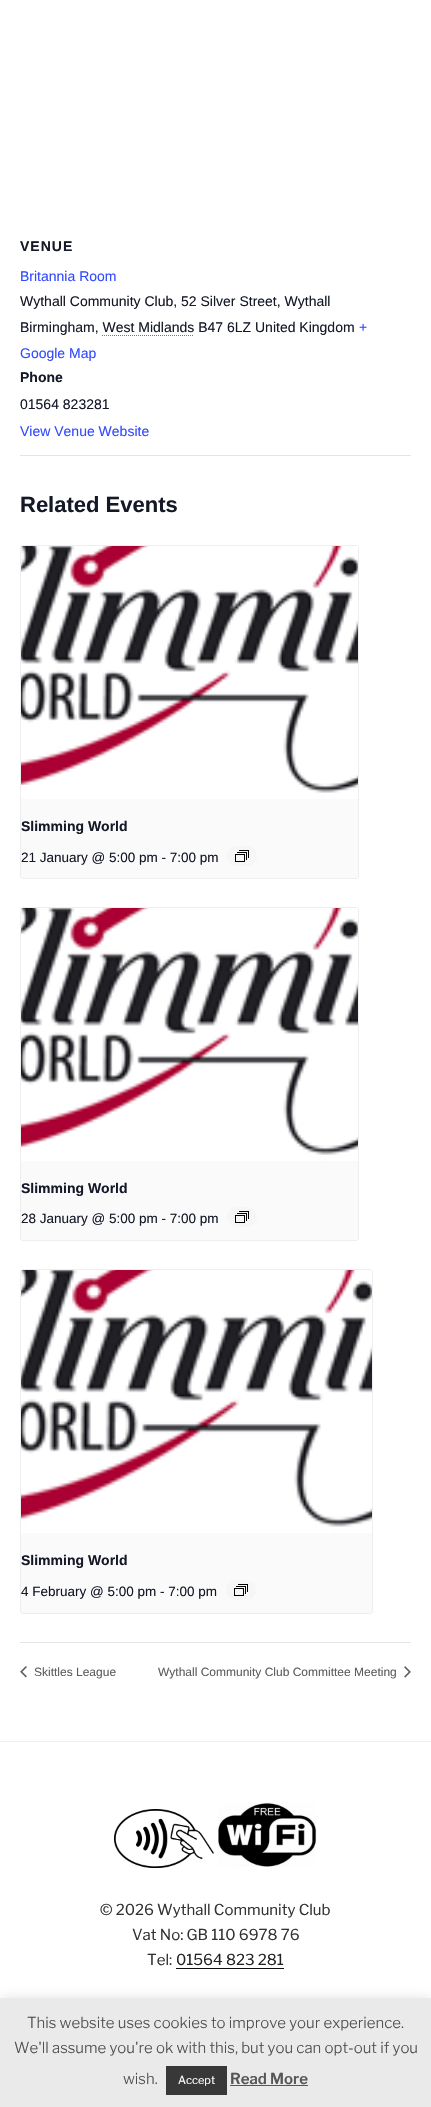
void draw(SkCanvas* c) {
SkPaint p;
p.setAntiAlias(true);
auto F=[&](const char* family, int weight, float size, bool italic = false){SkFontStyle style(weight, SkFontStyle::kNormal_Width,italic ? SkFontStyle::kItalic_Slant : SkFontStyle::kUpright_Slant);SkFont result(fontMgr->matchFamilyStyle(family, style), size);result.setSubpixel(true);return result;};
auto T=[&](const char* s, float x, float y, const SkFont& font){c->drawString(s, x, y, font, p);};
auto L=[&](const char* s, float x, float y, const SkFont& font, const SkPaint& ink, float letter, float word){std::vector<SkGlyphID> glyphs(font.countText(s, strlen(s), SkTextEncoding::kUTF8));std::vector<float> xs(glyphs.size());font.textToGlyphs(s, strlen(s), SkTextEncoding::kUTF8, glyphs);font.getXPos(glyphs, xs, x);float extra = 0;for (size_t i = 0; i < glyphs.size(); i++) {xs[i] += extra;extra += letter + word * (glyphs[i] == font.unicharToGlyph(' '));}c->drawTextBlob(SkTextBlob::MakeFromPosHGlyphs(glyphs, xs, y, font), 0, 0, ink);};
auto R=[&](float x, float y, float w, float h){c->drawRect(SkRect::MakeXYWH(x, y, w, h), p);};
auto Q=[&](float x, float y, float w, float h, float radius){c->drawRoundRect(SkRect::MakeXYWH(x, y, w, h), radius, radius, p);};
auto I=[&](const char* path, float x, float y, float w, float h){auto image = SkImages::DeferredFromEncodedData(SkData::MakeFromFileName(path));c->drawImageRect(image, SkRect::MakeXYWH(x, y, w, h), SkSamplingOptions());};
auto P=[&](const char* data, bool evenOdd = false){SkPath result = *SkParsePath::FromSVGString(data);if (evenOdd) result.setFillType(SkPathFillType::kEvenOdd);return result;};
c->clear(0xffffffff);
auto f1 = F("Liberation Sans",700,14);
p.setColor(0xff141827);
L("VENUE",20,251,f1,p,1,0);
auto f2 = F("Liberation Sans",400,14);
p.setColor(0xff334aff);
T("Britannia Room",20,281,f2);
p.setColor(0xff141827);
T("Wythall Community Club, 52 Silver Street, Wythall",20,306,f2);
T("Birmingham, West Midlands B47 6LZ United Kingdom",20,332,f2);
p.setStroke(true);
p.setStrokeWidth(1);
p.setColor(0xff767676);
p.setPathEffect(SkDashPathEffect::Make({{1,1}}, 0));
c->drawPath(P("M102 335.5h92"),p);
p.setPathEffect(nullptr);
p.setStroke(false);
p.setColor(0xff334aff);
T("+",359,332,f2);
T("Google Map",20,358,f2);
p.setColor(0xff141827);
T("Phone",20,382,f1);
T("01564 823281",20,409,f2);
p.setColor(0xff334aff);
T("View Venue Website",20,436,f2);
p.setColor(0xffe4e4e4);
R(20,455,391,1);
auto f3 = F("Liberation Sans",700,22);
p.setColor(0xff141827);
T("Related Events",20,512,f3);
p.setColor(0xfffafafa);
c->drawRoundRect(SkRect::MakeXYWH(20.5,545.5,338,333),2.5,2.5,p);
p.setStroke(true);
p.setColor(0xffeeeeee);
c->drawRoundRect(SkRect::MakeXYWH(20.5,545.5,338,333),2.5,2.5,p);
I("1.png",21,546,337,253);
p.setStroke(false);
p.setColor(0xff141827);
T("Slimming World",21,831,f1);
auto f4 = F("Liberation Sans",400,13.5);
T("21 January @ 5:00 pm - 7:00 pm",21,862,f4);
p.setColor(0xfff7f6f6);
Q(227,846,30,20,10);
I("2.png",235,850,14,12);
p.setColor(0xfffafafa);
c->drawRoundRect(SkRect::MakeXYWH(20.5,907.5,338,333),2.5,2.5,p);
p.setStroke(true);
p.setColor(0xffeeeeee);
c->drawRoundRect(SkRect::MakeXYWH(20.5,907.5,338,333),2.5,2.5,p);
I("1.png",21,908,337,253);
p.setStroke(false);
p.setColor(0xff141827);
T("Slimming World",21,1193,f1);
T("28 January @ 5:00 pm - 7:00 pm",21,1223,f4);
p.setColor(0xfff7f6f6);
Q(227,1207,30,20,10);
I("2.png",235,1211,14,12);
p.setColor(0xfffafafa);
c->drawRoundRect(SkRect::MakeXYWH(20.5,1269.5,352,344),2.5,2.5,p);
p.setStroke(true);
p.setColor(0xffeeeeee);
c->drawRoundRect(SkRect::MakeXYWH(20.5,1269.5,352,344),2.5,2.5,p);
I("3.png",21,1270,351,263);
p.setStroke(false);
p.setColor(0xff141827);
T("Slimming World",21,1565,f1);
T("4 February @ 5:00 pm - 7:00 pm",21,1596,f4);
p.setColor(0xfff7f6f6);
Q(226,1580,30,20,10);
I("2.png",234,1584,14,12);
p.setColor(0xffe4e4e4);
R(20,1642,391,1);
I("4.png",20,1666,7,12);
auto f5 = F("Liberation Sans",400,12);
p.setColor(0xff5d5d5d);
T("Skittles League",34,1676,f5);
T("Wythall Community Club Committee Meeting",158,1676,f5);
I("5.png",404,1666,7,12);
p.setColor(0xffeeeeee);
R(0,1741,431,1);
I("6.png",114,1809,100,59);
I("7.png",218,1802,99,65);
auto f6 = F("Libre Franklin",100,15);
p.setColor(0xff333333);
T("© 2026 Wythall Community Club",100,1915,f6);
T("Vat No: GB 110 6978 76",132,1940,f6);
T("Tel:",147,1965,f6);
p.setColor(0xff222222);
T("01564 823 281",176,1965,f6);
p.setColor(0xff0f0f0f);
R(176,1968,108,1);
p.setColor(0x4dacabab);
p.setMaskFilter(SkMaskFilter::MakeBlur(kNormal_SkBlurStyle, 5));
c->drawRect(SkRect::MakeXYWH(0,1997,431,109),p);
p.setMaskFilter(nullptr);
p.setColor(0xffeaeaea);
R(0,1998,431,109);
auto f7 = F("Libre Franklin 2",100,15);
p.setColor(0xff4f4f4f);
T("This website uses cookies to improve your experience.",27,2028,f7);
T("We'll assume you're ok with this, but you can opt-out if you",14,2053,f7);
T("wish.",123,2084,f7);
p.setColor(0xff383838);
R(166,2066,61,29);
auto f8 = F("Libre Franklin",100,11);
p.setColor(0xffffffff);
T("Accept",178,2084,f8);
auto f9 = F("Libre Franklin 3",100,15);
p.setColor(0xff565656);
T("Read More",230,2084,f9);
R(230,2085,78,1);
}
